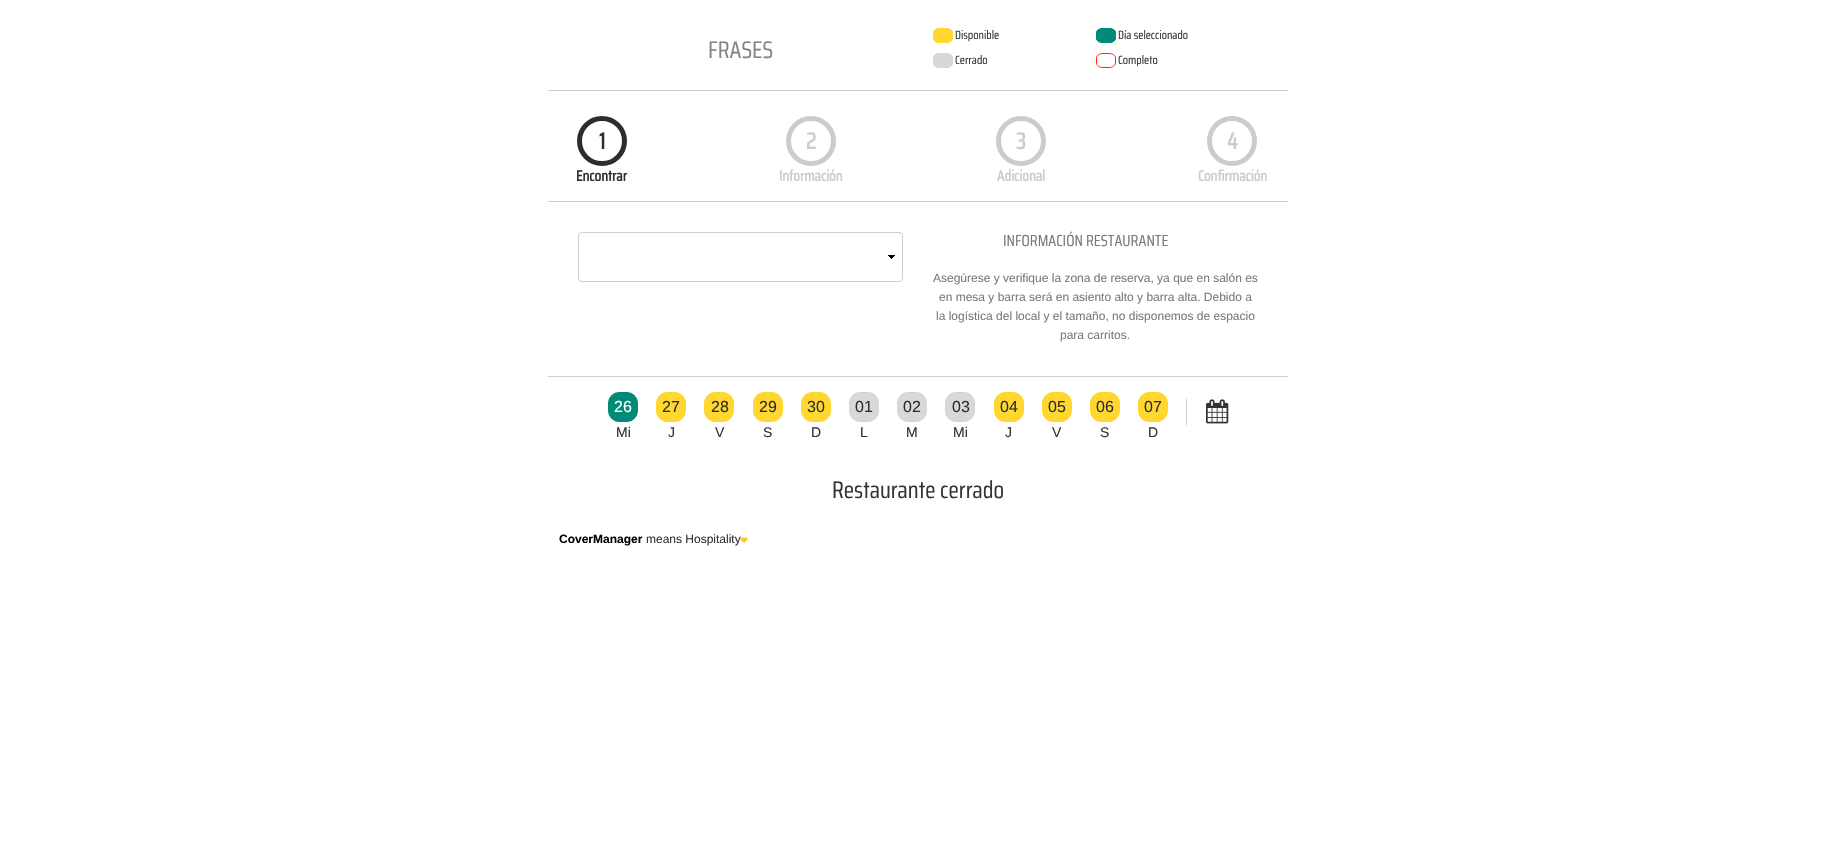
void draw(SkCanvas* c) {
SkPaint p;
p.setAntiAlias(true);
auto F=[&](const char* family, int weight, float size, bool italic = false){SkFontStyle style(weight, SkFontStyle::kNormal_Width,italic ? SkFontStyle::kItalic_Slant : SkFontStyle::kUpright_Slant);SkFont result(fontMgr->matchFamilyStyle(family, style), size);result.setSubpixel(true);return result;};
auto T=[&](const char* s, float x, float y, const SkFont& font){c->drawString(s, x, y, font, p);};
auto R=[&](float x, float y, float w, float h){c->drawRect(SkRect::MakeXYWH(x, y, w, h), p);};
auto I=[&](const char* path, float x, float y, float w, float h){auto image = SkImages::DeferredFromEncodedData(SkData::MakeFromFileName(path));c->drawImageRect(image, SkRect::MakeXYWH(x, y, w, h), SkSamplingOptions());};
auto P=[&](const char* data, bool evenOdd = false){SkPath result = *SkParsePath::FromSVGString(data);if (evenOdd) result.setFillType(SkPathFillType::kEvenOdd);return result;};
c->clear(0xffffffff);
p.setColor(0xffcecece);
R(548,90,740,1);
auto f1 = F("Saira Condensed",400,24);
p.setColor(0xff858585);
T("FRASES",708,58,f1);
p.setColor(0xffffd72e);
c->drawPath(P("M940 28h6c4 0 7 2.5 7 5v5c0 2.5-3 5-7 5h-6c-4 0-7-2.5-7-5v-5c0-2.5 3-5 7-5z"),p);
p.setStroke(true);
p.setStrokeWidth(1);
c->drawPath(P("M940 28.5h6c3.5 0 6.5 2 6.5 4.5v5c0 2.5-3 4.5-6.5 4.5h-6c-3.5 0-6.5-2-6.5-4.5v-5c0-2.5 3-4.5 6.5-4.5z"),p);
auto f2 = F("Saira Condensed",400,12);
p.setStroke(false);
p.setColor(0xff333333);
T("Disponible",955,39,f2);
p.setColor(0xff028a78);
c->drawPath(P("M1103 28h6c4 0 7 2.5 7 5v5c0 2.5-3 5-7 5h-6c-4 0-7-2.5-7-5v-5c0-2.5 3-5 7-5z"),p);
p.setStroke(true);
c->drawPath(P("M1103 28.5h6c3.5 0 6.5 2 6.5 4.5v5c0 2.5-3 4.5-6.5 4.5h-6c-3.5 0-6.5-2-6.5-4.5v-5c0-2.5 3-4.5 6.5-4.5z"),p);
p.setStroke(false);
p.setColor(0xff333333);
T("Día seleccionado",1118,39,f2);
p.setColor(0xffd8d8d8);
c->drawPath(P("M940 53h6c4 0 7 2.5 7 5v5c0 2.5-3 5-7 5h-6c-4 0-7-2.5-7-5v-5c0-2.5 3-5 7-5z"),p);
p.setStroke(true);
p.setColor(0xffd5d5d5);
c->drawPath(P("M940 53.5h6c3.5 0 6.5 2 6.5 4.5v5c0 2.5-3 4.5-6.5 4.5h-6c-3.5 0-6.5-2-6.5-4.5v-5c0-2.5 3-4.5 6.5-4.5z"),p);
p.setStroke(false);
p.setColor(0xff333333);
T("Cerrado",955,64,f2);
p.setStroke(true);
p.setColor(0xffff2500);
c->drawPath(P("M1103 53.5h6c3.5 0 6.5 2 6.5 4.5v5c0 2.5-3 4.5-6.5 4.5h-6c-3.5 0-6.5-2-6.5-4.5v-5c0-2.5 3-4.5 6.5-4.5z"),p);
p.setStroke(false);
p.setColor(0xff333333);
T("Completo",1118,64,f2);
p.setColor(0xffcecece);
R(548,201,740,1);
p.setStroke(true);
p.setStrokeWidth(5);
p.setColor(0xff2d2d2d);
c->drawCircle(602,141,22.5,p);
auto f3 = F("Saira Condensed",700,23);
p.setStroke(false);
T("1",599,149,f3);
auto f4 = F("Saira Condensed",700,15);
T("Encontrar",576,181,f4);
p.setStroke(true);
p.setColor(0xffcccccc);
c->drawCircle(811,141,22.5,p);
p.setStroke(false);
T("2",806,149,f3);
T("Información",779,181,f4);
p.setStroke(true);
c->drawCircle(1021,141,22.5,p);
p.setStroke(false);
T("3",1016,149,f3);
T("Adicional",997,181,f4);
p.setStroke(true);
c->drawCircle(1232,141,22.5,p);
p.setStroke(false);
T("4",1227,149,f3);
T("Confirmación",1198,181,f4);
p.setColor(0xffcecece);
R(548,376,740,1);
I("1.png",888,255,7,4);
p.setStroke(true);
p.setStrokeWidth(1);
c->drawRoundRect(SkRect::MakeXYWH(578.5,232.5,324,49),3.5,3.5,p);
auto f5 = F("Saira Condensed",400,16);
p.setStroke(false);
p.setColor(0xff7a7a7a);
T("INFORMACIÓN RESTAURANTE",1003,246,f5);
auto f6 = F("Liberation Sans",400,12);
T("Asegúrese y verifique la zona de reserva, ya que en salón es",933,282,f6);
T("en mesa y barra será en asiento alto y barra alta. Debido a",939,301,f6);
T("la logística del local y el tamaño, no disponemos de espacio",936,320,f6);
T("para carritos.",1060,339,f6);
p.setColor(0xff028a78);
c->drawRoundRect(SkRect::MakeXYWH(608.5,392.5,29,29),10.5,10.5,p);
p.setStroke(true);
c->drawRoundRect(SkRect::MakeXYWH(608.5,392.5,29,29),10.5,10.5,p);
auto f7 = F("Liberation Sans",400,16);
p.setStroke(false);
p.setColor(0xffffffff);
T("26",614,412,f7);
auto f8 = F("Liberation Sans",400,14);
p.setColor(0xff333333);
T("Mi",616,437,f8);
p.setColor(0xffffd72e);
c->drawRoundRect(SkRect::MakeXYWH(656.5,392.5,29,29),10.5,10.5,p);
p.setStroke(true);
c->drawRoundRect(SkRect::MakeXYWH(656.5,392.5,29,29),10.5,10.5,p);
p.setStroke(false);
p.setColor(0xff2d2d2d);
T("27",662,412,f7);
p.setColor(0xff333333);
T("J",668,437,f8);
p.setColor(0xffffd72e);
c->drawRoundRect(SkRect::MakeXYWH(704.5,392.5,29,29),10.5,10.5,p);
p.setStroke(true);
c->drawRoundRect(SkRect::MakeXYWH(704.5,392.5,29,29),10.5,10.5,p);
p.setStroke(false);
p.setColor(0xff2d2d2d);
T("28",711,412,f7);
p.setColor(0xff333333);
T("V",715,437,f8);
p.setColor(0xffffd72e);
c->drawRoundRect(SkRect::MakeXYWH(753.5,392.5,29,29),10.5,10.5,p);
p.setStroke(true);
c->drawRoundRect(SkRect::MakeXYWH(753.5,392.5,29,29),10.5,10.5,p);
p.setStroke(false);
p.setColor(0xff2d2d2d);
T("29",759,412,f7);
p.setColor(0xff333333);
T("S",763,437,f8);
p.setColor(0xffffd72e);
c->drawRoundRect(SkRect::MakeXYWH(801.5,392.5,29,29),10.5,10.5,p);
p.setStroke(true);
c->drawRoundRect(SkRect::MakeXYWH(801.5,392.5,29,29),10.5,10.5,p);
p.setStroke(false);
p.setColor(0xff2d2d2d);
T("30",807,412,f7);
p.setColor(0xff333333);
T("D",811,437,f8);
p.setColor(0xffd8d8d8);
c->drawRoundRect(SkRect::MakeXYWH(849.5,392.5,29,29),10.5,10.5,p);
p.setStroke(true);
p.setColor(0xffd5d5d5);
c->drawRoundRect(SkRect::MakeXYWH(849.5,392.5,29,29),10.5,10.5,p);
p.setStroke(false);
p.setColor(0xff2d2d2d);
T("01",855,412,f7);
p.setColor(0xff333333);
T("L",860,437,f8);
p.setColor(0xffd8d8d8);
c->drawRoundRect(SkRect::MakeXYWH(897.5,392.5,29,29),10.5,10.5,p);
p.setStroke(true);
p.setColor(0xffd5d5d5);
c->drawRoundRect(SkRect::MakeXYWH(897.5,392.5,29,29),10.5,10.5,p);
p.setStroke(false);
p.setColor(0xff2d2d2d);
T("02",903,412,f7);
p.setColor(0xff333333);
T("M",906,437,f8);
p.setColor(0xffd8d8d8);
c->drawRoundRect(SkRect::MakeXYWH(945.5,392.5,29,29),10.5,10.5,p);
p.setStroke(true);
p.setColor(0xffd5d5d5);
c->drawRoundRect(SkRect::MakeXYWH(945.5,392.5,29,29),10.5,10.5,p);
p.setStroke(false);
p.setColor(0xff2d2d2d);
T("03",952,412,f7);
p.setColor(0xff333333);
T("Mi",953,437,f8);
p.setColor(0xffffd72e);
c->drawRoundRect(SkRect::MakeXYWH(994.5,392.5,29,29),10.5,10.5,p);
p.setStroke(true);
c->drawRoundRect(SkRect::MakeXYWH(994.5,392.5,29,29),10.5,10.5,p);
p.setStroke(false);
p.setColor(0xff2d2d2d);
T("04",1000,412,f7);
p.setColor(0xff333333);
T("J",1005,437,f8);
p.setColor(0xffffd72e);
c->drawRoundRect(SkRect::MakeXYWH(1042.5,392.5,29,29),10.5,10.5,p);
p.setStroke(true);
c->drawRoundRect(SkRect::MakeXYWH(1042.5,392.5,29,29),10.5,10.5,p);
p.setStroke(false);
p.setColor(0xff2d2d2d);
T("05",1048,412,f7);
p.setColor(0xff333333);
T("V",1052,437,f8);
p.setColor(0xffffd72e);
c->drawRoundRect(SkRect::MakeXYWH(1090.5,392.5,29,29),10.5,10.5,p);
p.setStroke(true);
c->drawRoundRect(SkRect::MakeXYWH(1090.5,392.5,29,29),10.5,10.5,p);
p.setStroke(false);
p.setColor(0xff2d2d2d);
T("06",1096,412,f7);
p.setColor(0xff333333);
T("S",1100,437,f8);
p.setColor(0xffffd72e);
c->drawRoundRect(SkRect::MakeXYWH(1138.5,392.5,29,29),10.5,10.5,p);
p.setStroke(true);
c->drawRoundRect(SkRect::MakeXYWH(1138.5,392.5,29,29),10.5,10.5,p);
p.setStroke(false);
p.setColor(0xff2d2d2d);
T("07",1144,412,f7);
p.setColor(0xff333333);
T("D",1148,437,f8);
p.setColor(0xffcecece);
R(1186,399,1,26);
I("2.png",1206,399,23,25);
p.setColor(0xff333333);
T("Restaurante cerrado",832,498,f1);
auto f9 = F("Liberation Sans",700,12);
p.setColor(0xff000000);
T("CoverManager",559,543,f9);
p.setColor(0xff333333);
T("means Hospitality",646,543,f6);
I("3.png",740,537,8,7);
}
